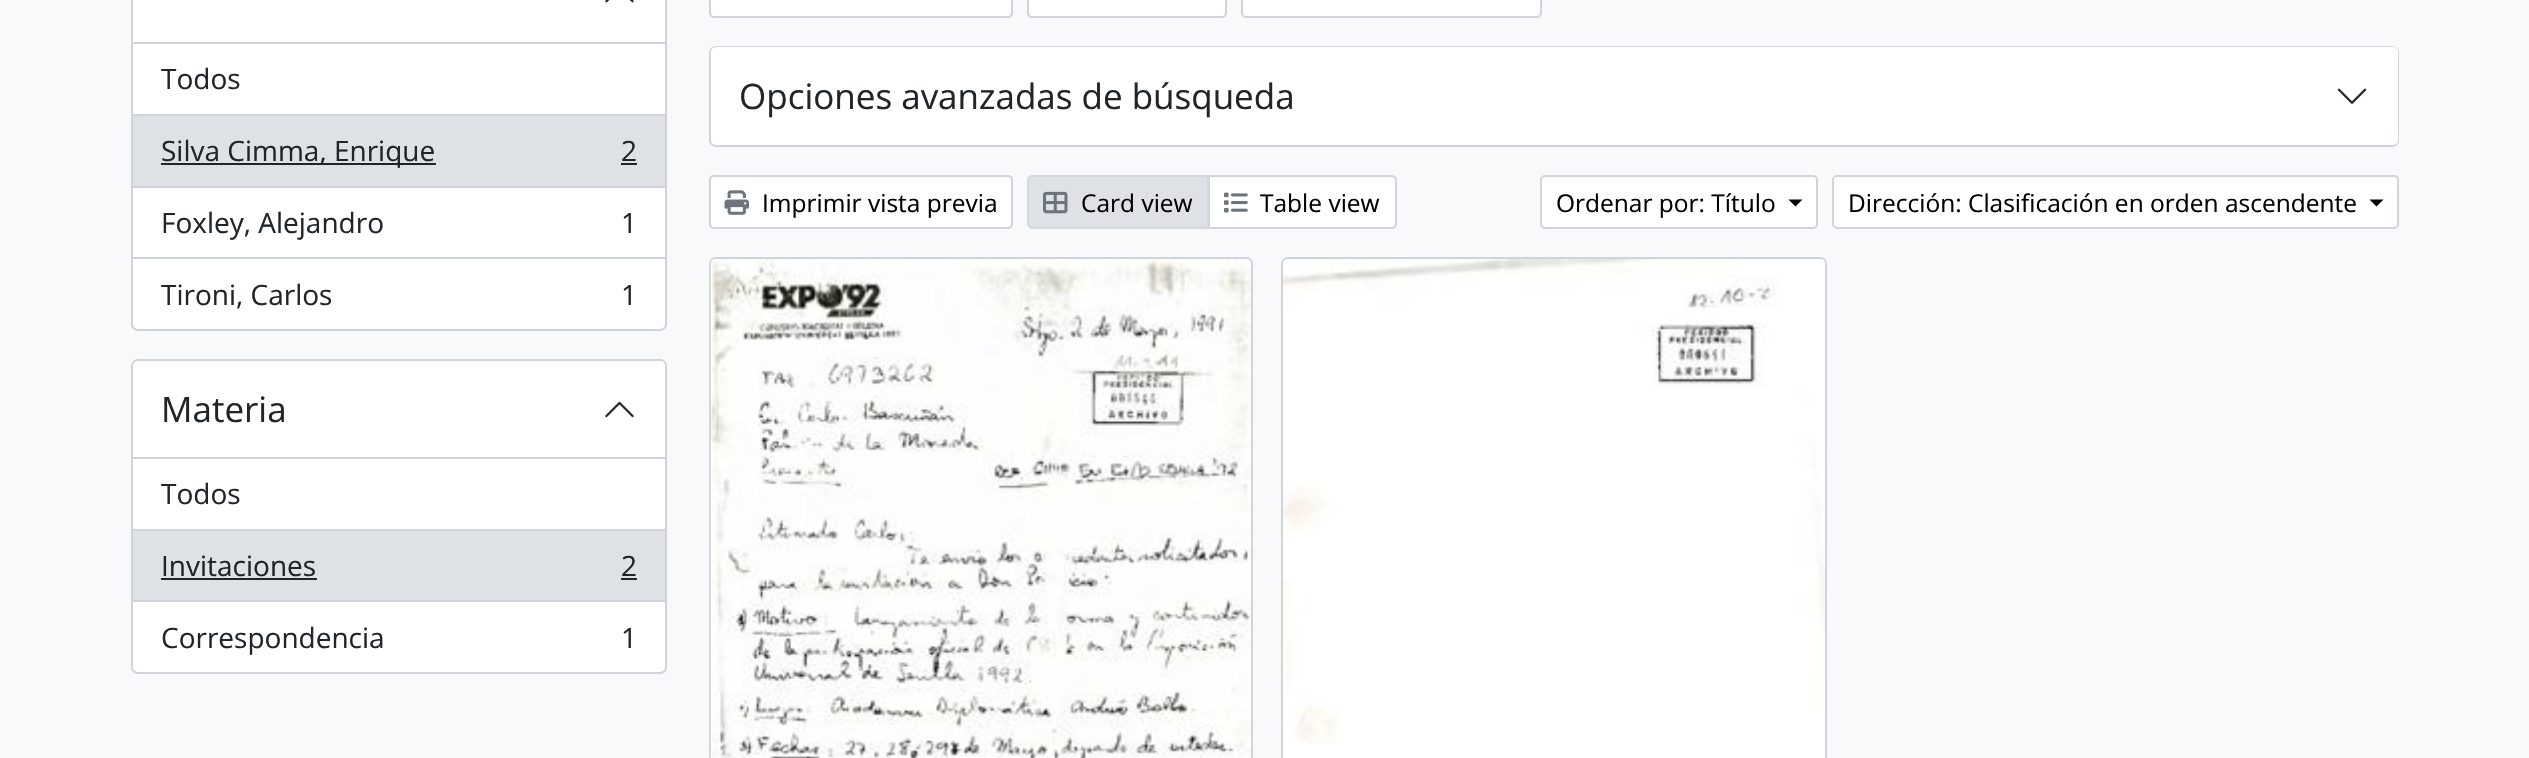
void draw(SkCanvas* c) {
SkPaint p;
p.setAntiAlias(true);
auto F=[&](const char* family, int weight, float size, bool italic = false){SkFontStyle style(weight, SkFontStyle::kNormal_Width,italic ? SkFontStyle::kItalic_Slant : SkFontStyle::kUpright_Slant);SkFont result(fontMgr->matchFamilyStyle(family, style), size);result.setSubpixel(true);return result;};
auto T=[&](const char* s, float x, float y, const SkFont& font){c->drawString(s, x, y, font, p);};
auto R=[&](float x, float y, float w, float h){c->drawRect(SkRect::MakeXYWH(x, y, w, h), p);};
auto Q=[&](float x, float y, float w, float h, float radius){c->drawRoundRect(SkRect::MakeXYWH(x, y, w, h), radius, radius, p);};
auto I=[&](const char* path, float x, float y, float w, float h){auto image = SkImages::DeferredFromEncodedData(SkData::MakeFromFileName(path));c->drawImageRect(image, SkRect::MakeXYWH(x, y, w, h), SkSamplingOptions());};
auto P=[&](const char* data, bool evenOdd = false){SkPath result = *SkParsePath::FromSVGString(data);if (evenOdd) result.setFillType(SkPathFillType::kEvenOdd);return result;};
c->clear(0xfff8f9fa);
p.setColor(0xffffffff);
c->drawRoundRect(SkRect::MakeXYWH(132,-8,534,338),6,6,p);
p.setStroke(true);
p.setStrokeWidth(2);
p.setColor(0xffced4da);
c->drawRoundRect(SkRect::MakeXYWH(132,-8,534,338),6,6,p);
p.setStroke(false);
R(133,42,532,2);
I("1.png",605,0,29,3);
R(133,114,532,2);
auto f1 = F("Open Sans",400,28);
p.setColor(0xff212529);
T("Todos",161,89,f1);
p.setColor(0xffdee2e6);
R(133,116,532,70);
p.setColor(0xffced4da);
R(133,186,532,2);
p.setColor(0xff212529);
R(161,163,275,2);
T("Silva Cimma, Enrique",161,161,f1);
T("2",621,161,f1);
R(621,163,16,2);
p.setColor(0xffced4da);
R(133,257,532,2);
p.setColor(0xff212529);
T("Foxley, Alejandro",161,233,f1);
T("1",621,233,f1);
T("Tironi, Carlos",161,305,f1);
T("1",621,305,f1);
p.setColor(0xffffffff);
c->drawRoundRect(SkRect::MakeXYWH(132,360,534,313),6,6,p);
p.setStroke(true);
p.setColor(0xffced4da);
c->drawRoundRect(SkRect::MakeXYWH(132,360,534,313),6,6,p);
p.setStroke(false);
p.setColor(0xffffffff);
c->drawPath(P("M138 361h522c3 0 5 2 5 5v93h-532v-93c0-3 2-5 5-5z"),p);
p.setColor(0xffced4da);
R(133,457,532,2);
auto f2 = F("Open Sans",400,35);
p.setColor(0xff212529);
T("Materia",161,422,f2);
I("2.png",605,401,29,17);
T("Todos",161,504,f1);
p.setColor(0xffdee2e6);
R(133,531,532,69);
p.setColor(0xffced4da);
R(133,529,532,2);
R(133,600,532,2);
p.setColor(0xff212529);
T("Invitaciones",161,576,f1);
R(161,578,156,2);
T("2",621,576,f1);
R(621,578,16,2);
T("Correspondencia",161,648,f1);
T("1",621,648,f1);
p.setColor(0xffffffff);
c->drawRoundRect(SkRect::MakeXYWH(710,-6,302,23),4,4,p);
p.setStroke(true);
p.setColor(0xffced4da);
c->drawRoundRect(SkRect::MakeXYWH(710,-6,302,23),4,4,p);
p.setStroke(false);
p.setColor(0xffffffff);
c->drawRoundRect(SkRect::MakeXYWH(1028,-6,198,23),4,4,p);
p.setStroke(true);
p.setColor(0xffced4da);
c->drawRoundRect(SkRect::MakeXYWH(1028,-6,198,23),4,4,p);
p.setStroke(false);
p.setColor(0xffffffff);
c->drawRoundRect(SkRect::MakeXYWH(1242,-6,299,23),4,4,p);
p.setStroke(true);
p.setColor(0xffced4da);
c->drawRoundRect(SkRect::MakeXYWH(1242,-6,299,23),4,4,p);
c->drawRoundRect(SkRect::MakeXYWH(710,47,1688,99),6,6,p);
p.setStroke(false);
p.setColor(0xffffffff);
Q(711,47,1687,98,5);
p.setColor(0xff212529);
T("Opciones avanzadas de búsqueda",739,109,f2);
I("3.png",2337,88,30,16);
p.setColor(0xffffffff);
c->drawRoundRect(SkRect::MakeXYWH(710,176,302,52),4,4,p);
p.setStroke(true);
p.setColor(0xffced4da);
c->drawRoundRect(SkRect::MakeXYWH(710,176,302,52),4,4,p);
I("4.png",724,190,25,25);
auto f3 = F("Open Sans",400,24.5);
p.setStroke(false);
p.setColor(0xff000000);
T("Imprimir vista previa",762,212,f3);
p.setColor(0xffffffff);
c->drawPath(P("M1209 176h183c2 0 4 2 4 4v44c0 2-2 4-4 4h-183z"),p);
p.setStroke(true);
p.setColor(0xffced4da);
c->drawPath(P("M1209 176h183c2 0 4 2 4 4v44c0 2-2 4-4 4h-183z"),p);
p.setStroke(false);
p.setColor(0xffdee2e6);
c->drawPath(P("M1032 176h176v52h-176c-2 0-4-2-4-4v-44c0-2 2-4 4-4z"),p);
p.setStroke(true);
p.setColor(0xffd3d8de);
c->drawPath(P("M1032 176h176v52h-176c-2 0-4-2-4-4v-44c0-2 2-4 4-4z"),p);
I("5.png",1043,191,25,23);
p.setStroke(false);
p.setColor(0xff000000);
T("Card view",1081,212,f3);
I("6.png",1224,192,24,21);
T("Table view",1260,212,f3);
p.setColor(0xffffffff);
c->drawRoundRect(SkRect::MakeXYWH(1541,176,276,52),4,4,p);
p.setStroke(true);
p.setColor(0xffced4da);
c->drawRoundRect(SkRect::MakeXYWH(1541,176,276,52),4,4,p);
p.setStroke(false);
p.setColor(0xff000000);
T("Ordenar por: Título",1556,212,f3);
c->drawPath(P("M1788.5 199.5h14l-7 7z"),p);
p.setColor(0xffffffff);
c->drawRoundRect(SkRect::MakeXYWH(1833,176,565,52),4,4,p);
p.setStroke(true);
p.setColor(0xffced4da);
c->drawRoundRect(SkRect::MakeXYWH(1833,176,565,52),4,4,p);
p.setStroke(false);
p.setColor(0xff000000);
T("Dirección: Clasificación en orden ascendente",1848,212,f3);
c->drawPath(P("M2369.5 199.5h14l-7 7z"),p);
p.setStroke(true);
p.setColor(0xffced4da);
c->drawRoundRect(SkRect::MakeXYWH(710,258,542,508),6,6,p);
I("7.png",710,259,541,499);
p.setStroke(false);
p.setColor(0xffffffff);
c->drawRoundRect(SkRect::MakeXYWH(1282,258,544,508),6,6,p);
p.setStroke(true);
p.setColor(0xffced4da);
c->drawRoundRect(SkRect::MakeXYWH(1282,258,544,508),6,6,p);
I("8.png",1283,259,542,485);
}
